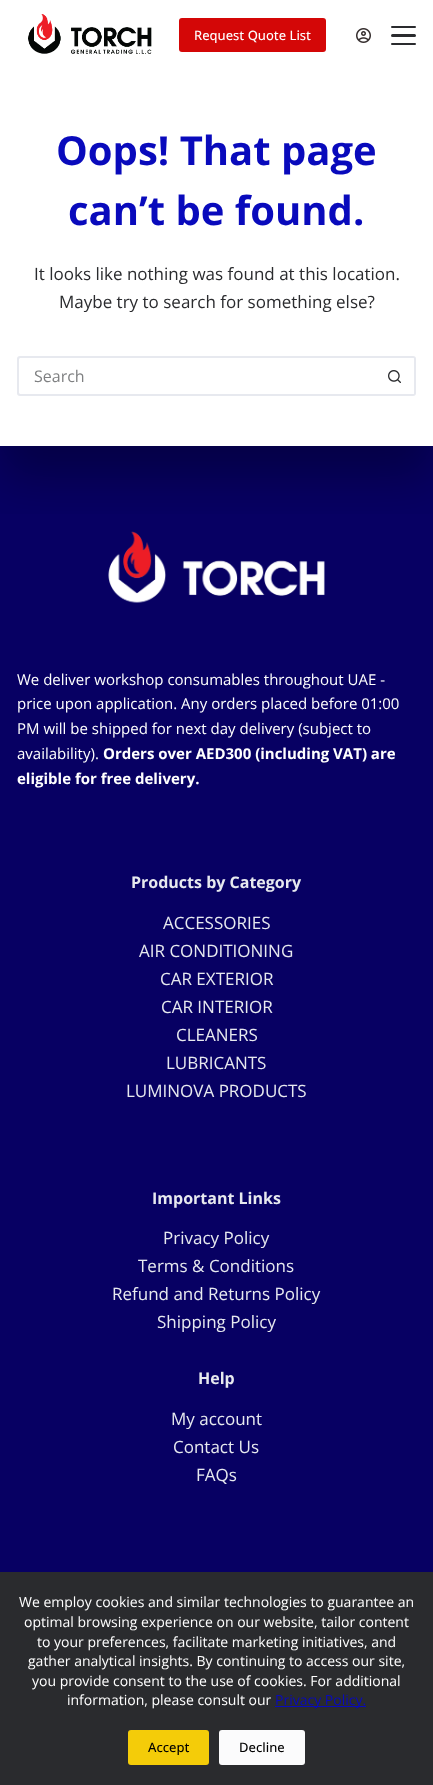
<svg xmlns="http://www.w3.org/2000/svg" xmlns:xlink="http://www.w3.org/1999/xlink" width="433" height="1785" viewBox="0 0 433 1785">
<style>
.cls-1{font:500 13px Open Sans;fill:#ffffff}
.cls-2{font:bold 40px Open Sans;fill:#090abc}
.cls-3{font:17px Open Sans;fill:#2a2b2e}
.cls-4{font:16px Open Sans;fill:#7f8082}
.cls-5{font:15px Open Sans;fill:#ffffff}
.cls-6{font:bold 15px Open Sans;fill:#ffffff}
.cls-7{font:bold 16px Open Sans;fill:#e7e9ef}
.cls-8{font:17px Open Sans;fill:#e7e9ef}
.cls-9{font:14px Open Sans;fill:#ffffff}
.cls-10{font:14px Open Sans;fill:#090abc}
.cls-11{font:500 13px Open Sans;fill:#000000}
</style>
<defs>
<clipPath id="clip1"><rect x="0" y="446" width="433" height="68"/></clipPath>
</defs>
<rect width="100%" height="100%" fill="#ffffff"/>
<rect fill="#070063" x="0" y="446" width="433" height="1126"/>
<image xlink:href="image3.png" x="108" y="531" width="217" height="72"/>
<g clip-path="url(#clip1)">
<rect fill="#000000" fill-opacity="0.3" filter="blur(25px)" x="0" y="100" width="433" height="376"/>
</g>
<rect fill="#ffffff" x="0" y="54" width="433" height="16"/>
<image xlink:href="image0.png" x="28" y="14" width="124" height="40"/>
<rect fill="#d40707" x="179" y="18" width="147" height="34" rx="3"/>
<image xlink:href="image1.png" x="356" y="28" width="15" height="15"/>
<rect fill="#2a2b2e" x="391" y="26" width="25" height="2" rx="1"/>
<rect fill="#2a2b2e" x="391" y="34" width="25" height="3" rx="1.5"/>
<rect fill="#2a2b2e" x="391" y="43" width="25" height="2" rx="1"/>
<path fill="#e7e9ef" fill-rule="evenodd" d="M20 356H376V396H20C18 396 17 395 17 393V359C17 357 18 356 20 356ZM20 358H376V394H20L19 393V359Z"/>
<path fill="#e7e9ef" fill-rule="evenodd" d="M376 356H413C415 356 416 357 416 359V393C416 395 415 396 413 396H376ZM376 358H413C414 358 414 358 414 359V393C414 394 414 394 413 394H376Z"/>
<image xlink:href="image2.png" x="388" y="370" width="13" height="13"/>
<rect fill="#2a2b2e" x="0" y="1572" width="433" height="213"/>
<rect fill="#090abc" x="275" y="1706" width="91" height="1"/>
<rect fill="#f4cc09" x="128" y="1730" width="81" height="35" rx="3"/>
<rect fill="#fbfbfc" x="219" y="1730" width="86" height="35" rx="3"/>
<text class="cls-1" x="194" y="40">Request Quote List</text>
<text class="cls-2" x="56" y="165">Oops! That page</text>
<text class="cls-2" x="68" y="225">can’t be found.</text>
<text class="cls-3" x="34" y="280">It looks like nothing was found at this location.</text>
<text class="cls-3" x="59" y="308">Maybe try to search for something else?</text>
<text class="cls-4" x="34" y="382">Search</text>
<text class="cls-5"><tspan x="17" y="685">We deliver workshop consumables throughout UAE -</tspan><tspan x="17" y="709">price upon application. Any orders placed before 01:00</tspan><tspan x="17" y="734">PM will be shipped for next day delivery (subject to</tspan><tspan x="17" y="759">availability).</tspan></text>
<text class="cls-6" x="103" y="759">Orders over AED300 (including VAT) are</text>
<text class="cls-6" x="17" y="784">eligible for free delivery.</text>
<text class="cls-7" x="131" y="888">Products by Category</text>
<text class="cls-8" x="163" y="929">ACCESSORIES</text>
<text class="cls-8" x="139" y="957">AIR CONDITIONING</text>
<text class="cls-8" x="160" y="985">CAR EXTERIOR</text>
<text class="cls-8" x="161" y="1013">CAR INTERIOR</text>
<text class="cls-8" x="176" y="1041">CLEANERS</text>
<text class="cls-8" x="166" y="1069">LUBRICANTS</text>
<text class="cls-8" x="126" y="1097">LUMINOVA PRODUCTS</text>
<text class="cls-7" x="152" y="1204">Important Links</text>
<text class="cls-8" x="163" y="1244">Privacy Policy</text>
<text class="cls-8" x="138" y="1272">Terms &amp; Conditions</text>
<text class="cls-8" x="112" y="1300">Refund and Returns Policy</text>
<text class="cls-8" x="157" y="1328">Shipping Policy</text>
<text class="cls-7" x="198" y="1384">Help</text>
<text class="cls-8" x="171" y="1425">My account</text>
<text class="cls-8" x="173" y="1453">Contact Us</text>
<text class="cls-8" x="196" y="1481">FAQs</text>
<text class="cls-9" x="19" y="1607">We employ cookies and similar technologies to guarantee an</text>
<text class="cls-9" x="24" y="1627">optimal browsing experience on our website, tailor content</text>
<text class="cls-9" x="37" y="1647">to your preferences, facilitate marketing initiatives, and</text>
<text class="cls-9" x="28" y="1666">gather analytical insights. By continuing to access our site,</text>
<text class="cls-9" x="32" y="1686">you provide consent to the use of cookies. For additional</text>
<text class="cls-9" x="67" y="1705">information, please consult our</text>
<text class="cls-10" x="275" y="1705">Privacy Policy.</text>
<text class="cls-11" x="148" y="1752">Accept</text>
<text class="cls-11" x="239" y="1752">Decline</text>
</svg>
